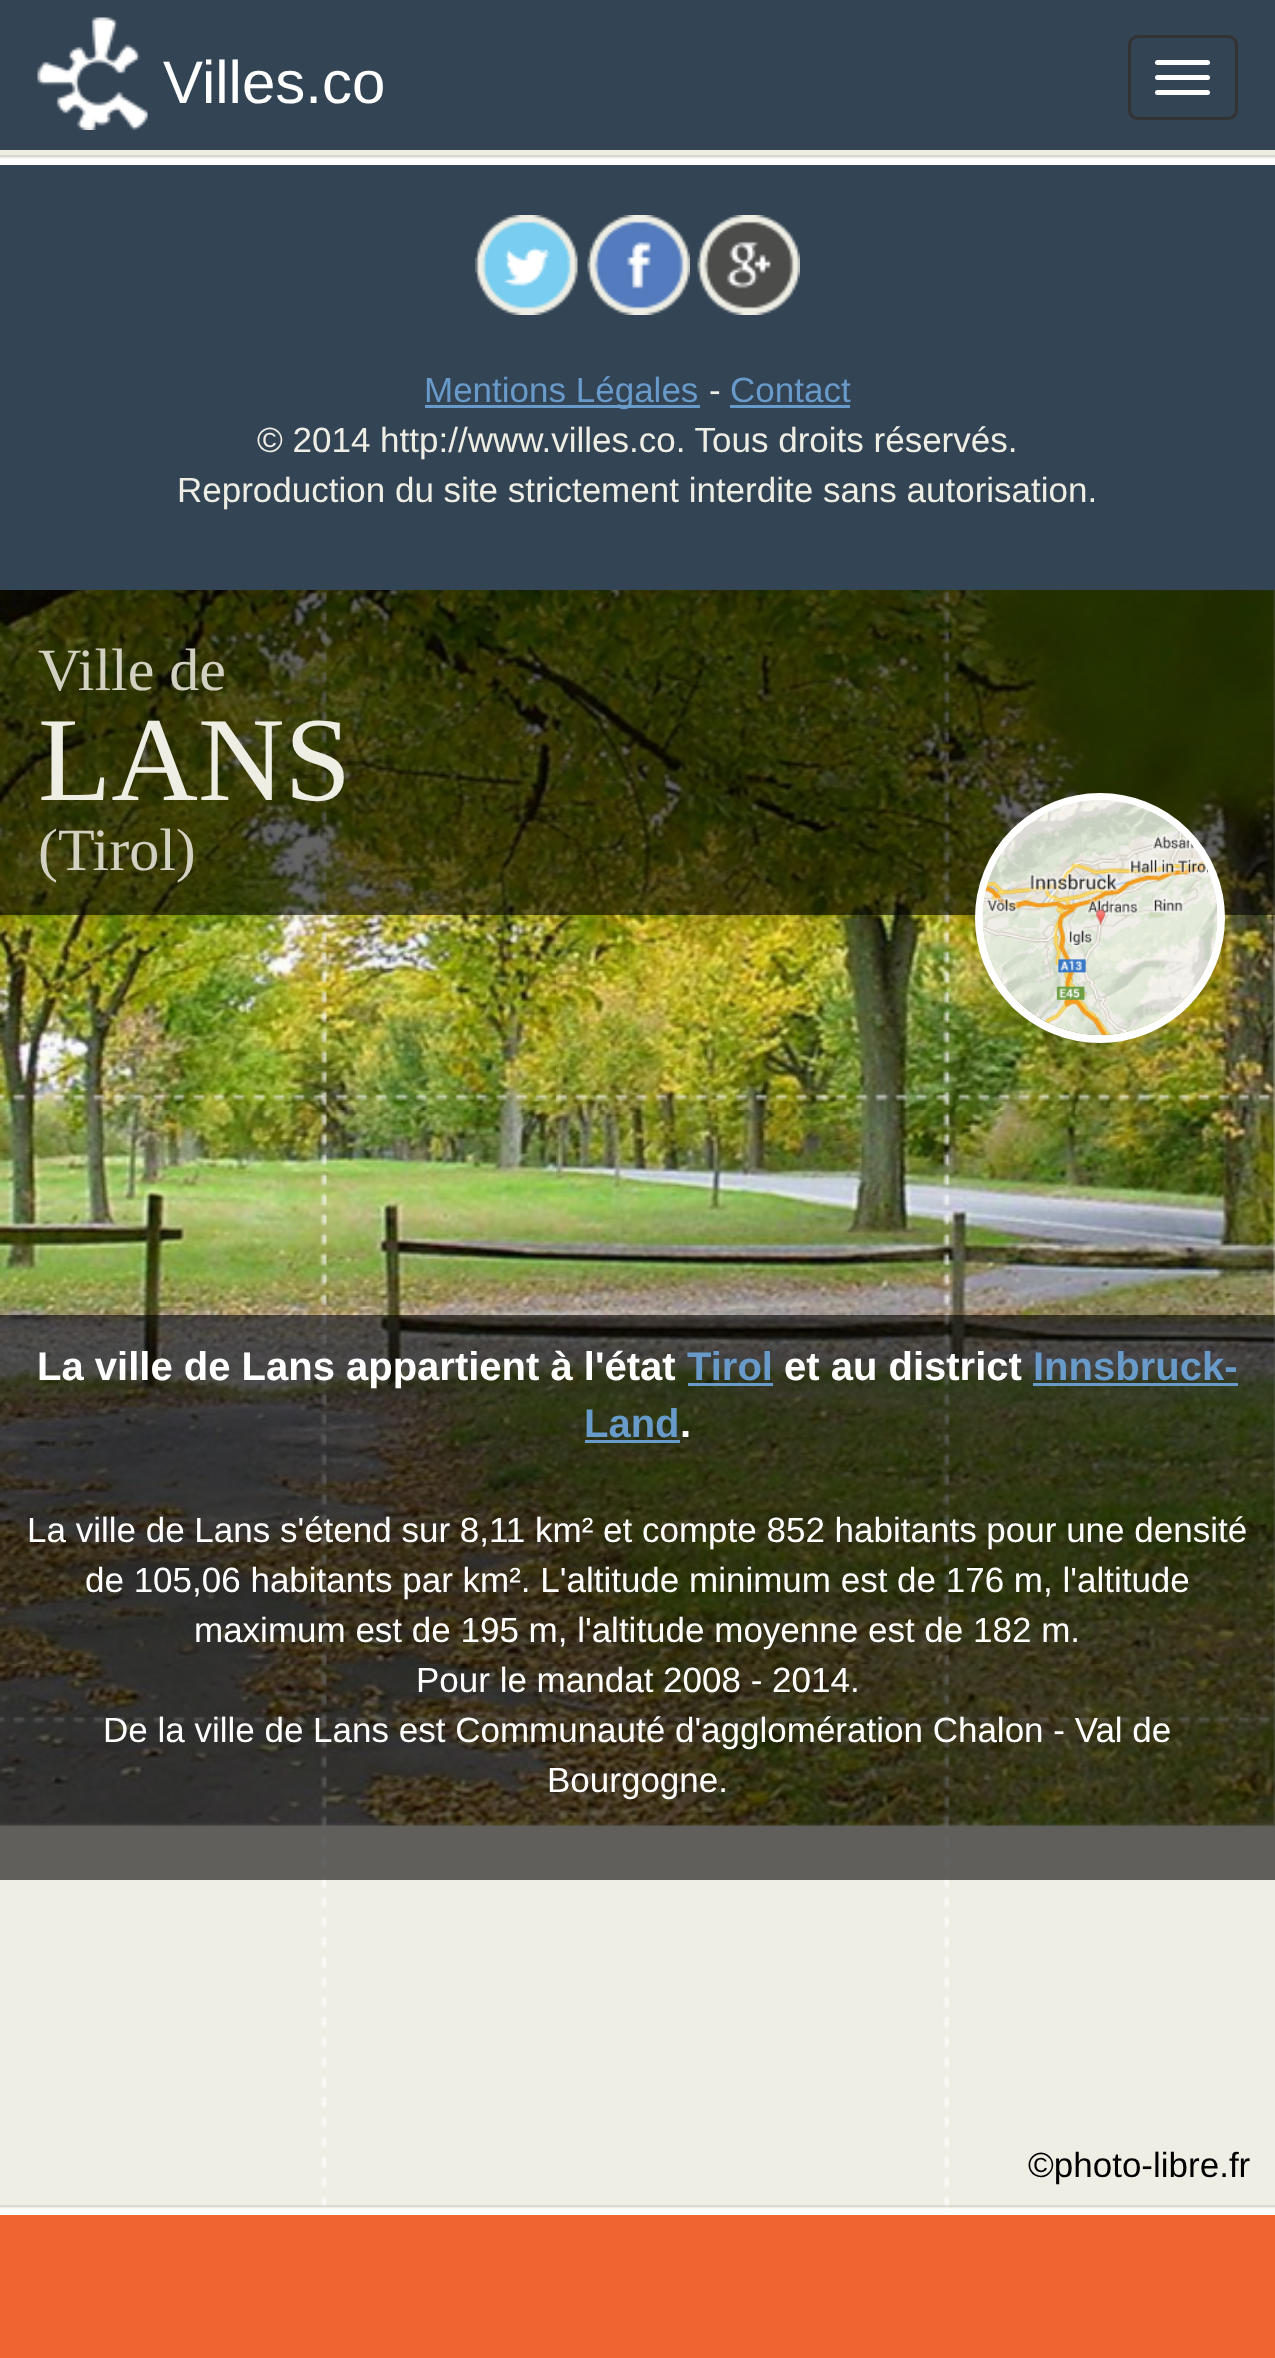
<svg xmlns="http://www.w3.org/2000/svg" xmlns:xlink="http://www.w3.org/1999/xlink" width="1275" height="2358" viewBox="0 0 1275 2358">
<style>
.cls-1{font:60px Liberation Sans;fill:#ffffff}
.cls-2{font:35px Liberation Sans;fill:#689aca}
.cls-3{font:35px Liberation Sans;fill:#efeee4}
.cls-4{font:60px Liberation Serif;fill:#d1d0c1}
.cls-5{font:120px Liberation Serif;fill:#efeee4}
.cls-6{font:bold 40px Liberation Sans;fill:#ffffff}
.cls-7{font:bold 40px Liberation Sans;fill:#689aca}
.cls-8{font:35px Liberation Sans;fill:#ffffff}
.cls-9{font:35px Liberation Sans;fill:#000000}
</style>
<rect width="100%" height="100%" fill="#efeee4"/>
<rect fill="#334455" x="0" y="0" width="1275" height="150"/>
<image xlink:href="image0.png" x="37" y="17" width="111" height="113"/>
<rect fill="none" stroke="#333333" stroke-width="3" x="1129.5" y="36.5" width="107" height="82" rx="8.5"/>
<rect fill="#ffffff" x="1155" y="60" width="55" height="5" rx="2.5"/>
<rect fill="#ffffff" x="1155" y="75" width="55" height="5" rx="2.5"/>
<rect fill="#ffffff" x="1155" y="90" width="55" height="5" rx="2.5"/>
<image xlink:href="image1.png" x="0" y="155" width="1275" height="10"/>
<rect fill="#334455" x="0" y="165" width="1275" height="425"/>
<image xlink:href="image2.png" x="475" y="215" width="103" height="100"/>
<image xlink:href="image3.png" x="587" y="215" width="103" height="100"/>
<image xlink:href="image4.png" x="697" y="215" width="103" height="100"/>
<rect fill="#689aca" x="425" y="405" width="275" height="3"/>
<rect fill="#689aca" x="730" y="405" width="120" height="3"/>
<image xlink:href="image5.png" x="0" y="590" width="1275" height="1237"/>
<image xlink:href="image6.png" x="0" y="590" width="1272" height="1619"/>
<rect fill="#000000" fill-opacity="0.6" x="0" y="590" width="1275" height="325"/>
<circle fill="none" stroke="#ffffff" stroke-width="8" cx="1100" cy="918" r="121"/>
<image xlink:href="image7.png" x="982" y="800" width="236" height="235"/>
<image xlink:href="image8.png" x="0" y="2205" width="1275" height="10"/>
<rect fill="#000000" fill-opacity="0.6" x="0" y="1315" width="1275" height="565"/>
<rect fill="#689aca" x="688" y="1383" width="85" height="3"/>
<rect fill="#689aca" x="1033" y="1383" width="205" height="3"/>
<rect fill="#689aca" x="585" y="1440" width="95" height="3"/>
<rect fill="#f0652f" x="0" y="2215" width="1275" height="143"/>
<text class="cls-1" x="163" y="103">Villes.co</text>
<text class="cls-2" x="424" y="402">Mentions Légales</text>
<text class="cls-3" x="709" y="402">-</text>
<text class="cls-2" x="730" y="402">Contact</text>
<text class="cls-3" x="257" y="452">© 2014 http://www.villes.co. Tous droits réservés.</text>
<text class="cls-3" x="177" y="502">Reproduction du site strictement interdite sans autorisation.</text>
<text class="cls-4" x="38" y="690">Ville de</text>
<text class="cls-5" x="38" y="800">LANS</text>
<text class="cls-4" x="38" y="870">(Tirol)</text>
<text class="cls-6" x="37" y="1380">La ville de Lans appartient à l'état</text>
<text class="cls-7" x="687" y="1380">Tirol</text>
<text class="cls-6" x="784" y="1380">et au district</text>
<text class="cls-7" x="1033" y="1380">Innsbruck-</text>
<text class="cls-7" x="584" y="1437">Land</text>
<text class="cls-6" x="680" y="1437">.</text>
<text class="cls-8" x="27" y="1542">La ville de Lans s'étend sur 8,11 km² et compte 852 habitants pour une densité</text>
<text class="cls-8" x="85" y="1592">de 105,06 habitants par km². L'altitude minimum est de 176 m, l'altitude</text>
<text class="cls-8" x="194" y="1642">maximum est de 195 m, l'altitude moyenne est de 182 m.</text>
<text class="cls-8" x="416" y="1692">Pour le mandat 2008 - 2014.</text>
<text class="cls-8" x="103" y="1742">De la ville de Lans est Communauté d'agglomération Chalon - Val de</text>
<text class="cls-8" x="547" y="1792">Bourgogne.</text>
<text class="cls-9" x="1028" y="2177">©photo-libre.fr</text>
</svg>
